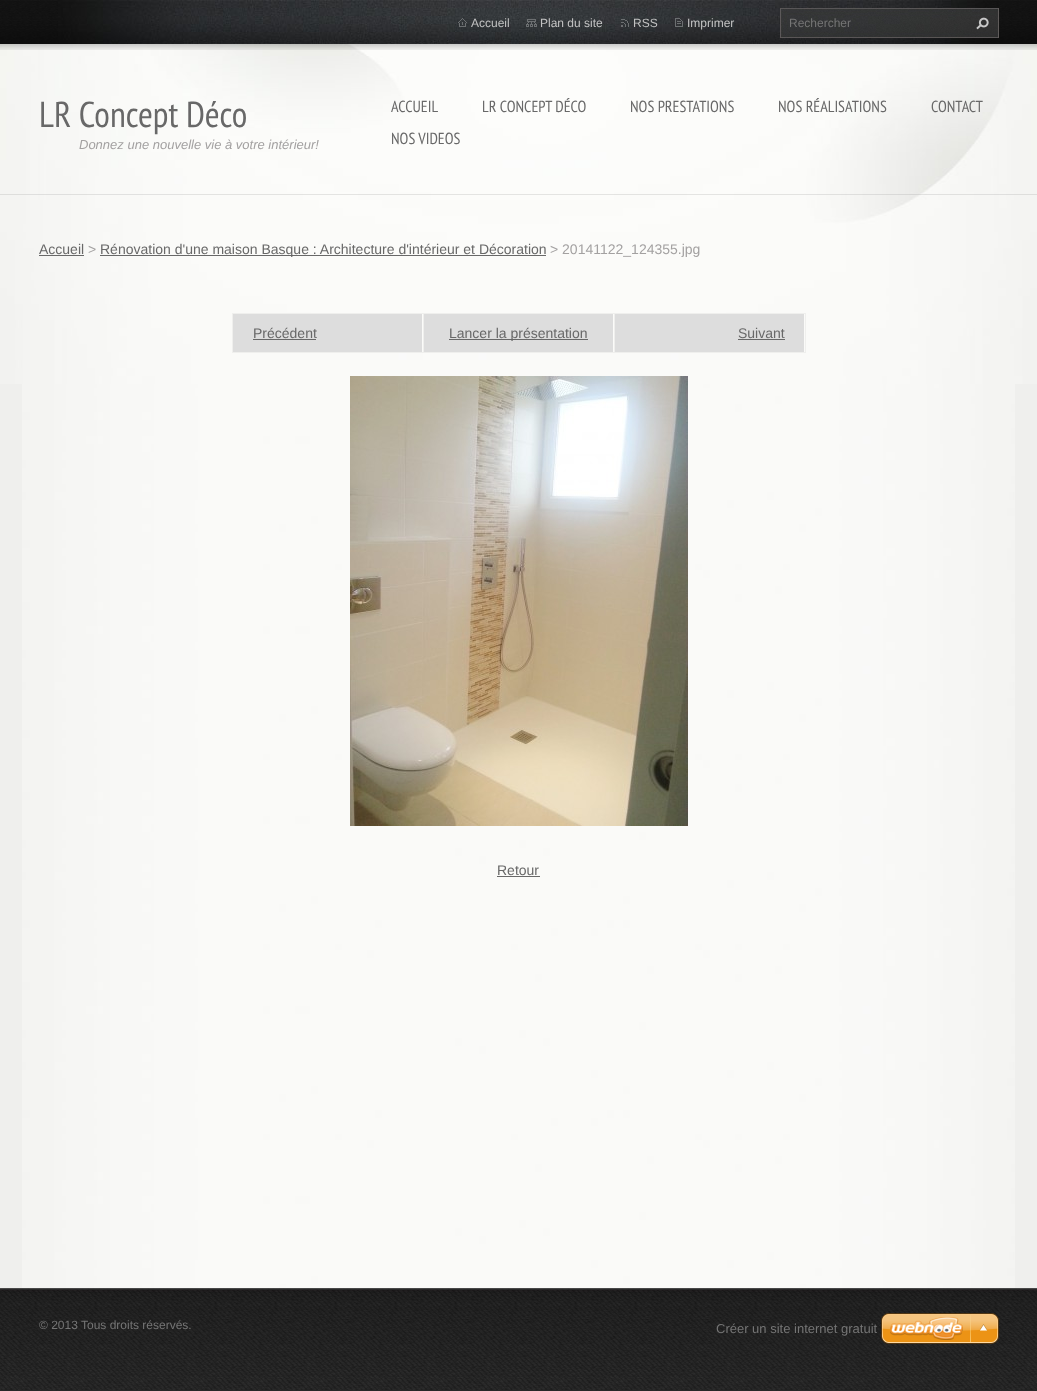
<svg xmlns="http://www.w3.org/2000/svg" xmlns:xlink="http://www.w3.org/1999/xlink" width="1037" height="1391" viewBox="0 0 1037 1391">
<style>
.cls-1{font:12px Liberation Sans;fill:#c3c3c3}
.cls-2{font:12px Liberation Sans;fill:#757575}
.cls-3{font:36px PT Sans Narrow;fill:#686868}
.cls-4{font:italic 13px Liberation Sans;fill:#a3a1a1}
.cls-5{font:16px PT Sans Narrow;fill:#686868}
.cls-6{font:14px Liberation Sans;fill:#686868}
.cls-7{font:14px Liberation Sans;fill:#a3a1a1}
.cls-8{font:13px Liberation Sans;fill:#757575}
</style>
<defs>
<clipPath id="clip1"><rect x="39" y="1288" width="480" height="103"/></clipPath>
</defs>
<rect width="100%" height="100%" fill="#efefed"/>
<image xlink:href="image0.png" x="22" y="384" width="993" height="904"/>
<image xlink:href="image1.png" x="0" y="44" width="1037" height="340"/>
<rect fill="#9e9e9e" fill-opacity="0.26" x="0" y="194" width="1037" height="1"/>
<image xlink:href="image2.png" x="0" y="0" width="1037" height="50"/>
<image xlink:href="image3.png" x="58" y="0" width="925" height="44"/>
<image xlink:href="image4.png" x="458" y="18" width="9" height="9"/>
<image xlink:href="image5.png" x="526" y="19" width="11" height="8"/>
<image xlink:href="image6.png" x="621" y="19" width="8" height="8"/>
<image xlink:href="image7.png" x="675" y="18" width="8" height="9"/>
<image xlink:href="image8.png" x="780" y="8" width="219" height="30"/>
<image xlink:href="image9.png" x="976" y="17" width="13" height="13"/>
<rect fill="#686868" x="39" y="255" width="45" height="1"/>
<rect fill="#686868" x="100" y="255" width="446" height="1"/>
<rect fill="#efefed" x="232" y="313" width="574" height="1"/>
<rect fill="#efefed" x="232" y="313" width="1" height="40"/>
<rect fill="#dddddd" x="233" y="314" width="189" height="38"/>
<rect fill="#efefed" x="805" y="313" width="1" height="40"/>
<rect fill="#efefed" x="614" y="352" width="192" height="1"/>
<rect fill="#efefed" x="614" y="313" width="1" height="40"/>
<rect fill="#efefed" x="423" y="352" width="192" height="1"/>
<rect fill="#efefed" x="423" y="313" width="1" height="40"/>
<rect fill="#efefed" x="232" y="352" width="192" height="1"/>
<rect fill="#686868" x="253" y="339" width="63" height="1"/>
<rect fill="#dddddd" x="424" y="314" width="189" height="38"/>
<rect fill="#686868" x="449" y="339" width="139" height="1"/>
<rect fill="#dddddd" x="615" y="314" width="189" height="38"/>
<rect fill="#686868" x="738" y="339" width="47" height="1"/>
<image xlink:href="image10.png" x="350" y="376" width="338" height="450"/>
<rect fill="#686868" x="497" y="876" width="43" height="1"/>
<image xlink:href="image11.png" x="0" y="1288" width="1037" height="103"/>
<image xlink:href="image12.png" x="881" y="1313" width="118" height="31"/>
<text class="cls-1" x="471" y="27">Accueil</text>
<text class="cls-1" x="540" y="27">Plan du site</text>
<text class="cls-1" x="633" y="27">RSS</text>
<text class="cls-1" x="687" y="27">Imprimer</text>
<text class="cls-2" x="789" y="27">Rechercher</text>
<text class="cls-3" x="39" y="127">LR Concept Déco</text>
<text class="cls-4" x="79" y="149">Donnez une nouvelle vie à votre intérieur!</text>
<text class="cls-5" x="391" y="112">ACCUEIL</text>
<text class="cls-5" x="482" y="112">LR CONCEPT DÉCO</text>
<text class="cls-5" x="630" y="112">NOS PRESTATIONS</text>
<text class="cls-5" x="778" y="112">NOS RÉALISATIONS</text>
<text class="cls-5" x="931" y="112">CONTACT</text>
<text class="cls-5" x="391" y="144">NOS VIDEOS</text>
<text class="cls-6" x="39" y="254">Accueil</text>
<text class="cls-7" x="88" y="254">&gt;</text>
<text class="cls-6" x="100" y="254">Rénovation d'une maison Basque : Architecture d'intérieur et Décoration</text>
<text class="cls-7" x="550" y="254">&gt; 20141122_124355.jpg</text>
<text class="cls-6" x="253" y="338">Précédent</text>
<text class="cls-6" x="449" y="338">Lancer la présentation</text>
<text class="cls-6" x="738" y="338">Suivant</text>
<text class="cls-6" x="497" y="875">Retour</text>
<g clip-path="url(#clip1)">
<text class="cls-2" x="39" y="1329">© 2013 Tous droits réservés.</text>
</g>
<text class="cls-8" x="716" y="1333">Créer un site internet gratuit</text>
</svg>
